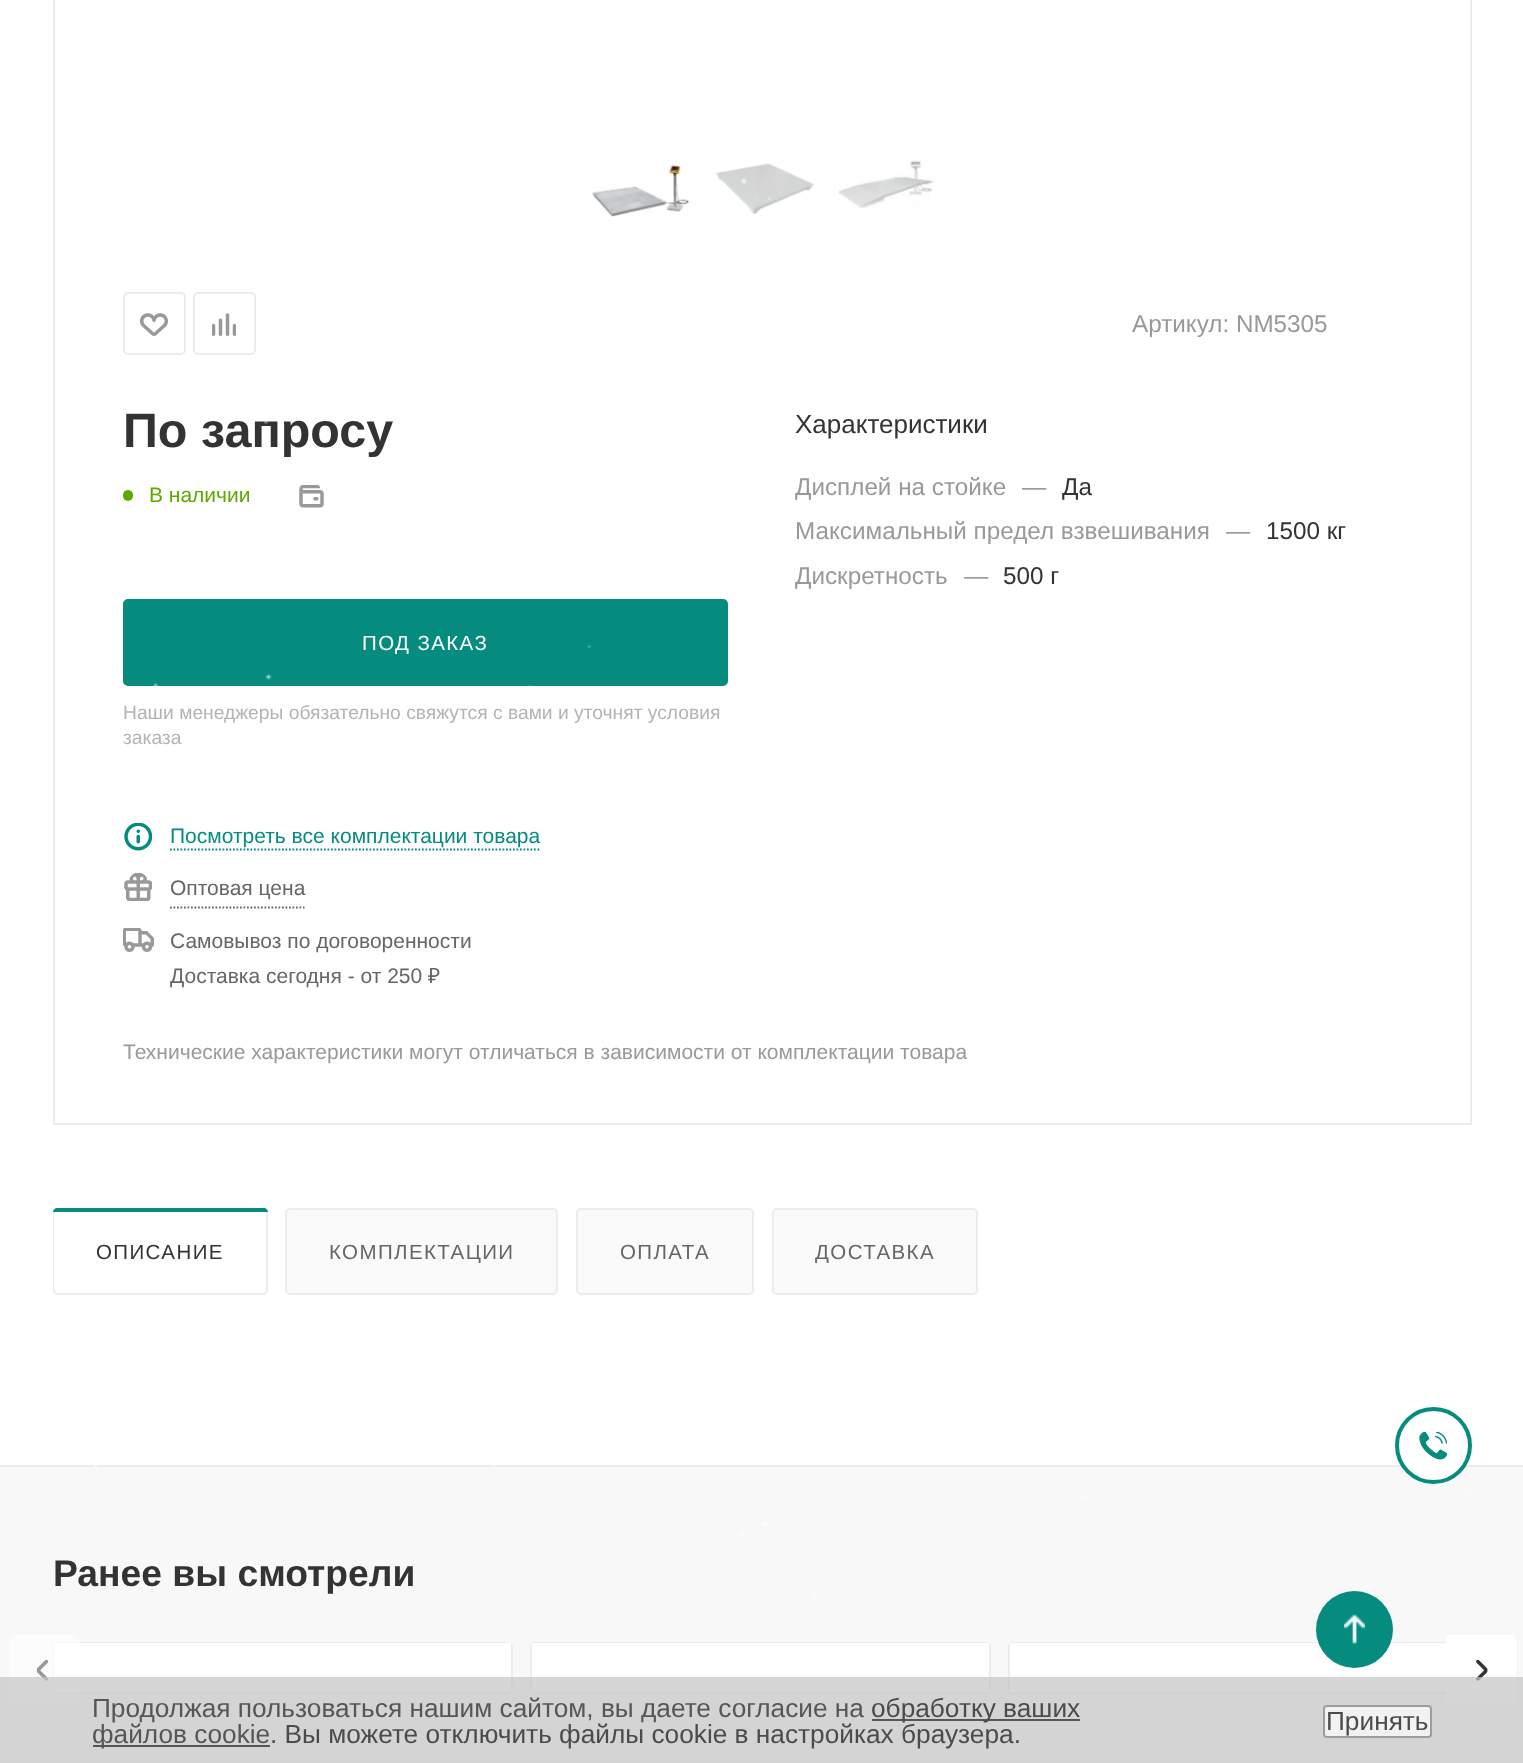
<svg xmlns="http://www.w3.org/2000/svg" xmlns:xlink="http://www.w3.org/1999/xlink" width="1523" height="1763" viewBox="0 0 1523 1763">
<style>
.cls-1{font:24.25px Liberation Sans;fill:#999999}
.cls-2{font:bold 48.5px Liberation Sans;fill:#333333}
.cls-3{font:21px Liberation Sans;fill:#5fa800}
.cls-4{font:20.5px Liberation Sans;letter-spacing:1.4px;fill:#ffffff}
.cls-5{font:19.25px Liberation Sans;fill:#b3b3b3}
.cls-6{font:21px Liberation Sans;fill:#068c7f}
.cls-7{font:21px Liberation Sans;fill:#666666}
.cls-8{font:21px Noto Sans;fill:#666666}
.cls-9{font:26px Liberation Sans;fill:#333333}
.cls-10{font:24.25px Liberation Sans;fill:#333333}
.cls-11{font:21px Liberation Sans;fill:#999999}
.cls-12{font:20.5px Liberation Sans;letter-spacing:1.4px;fill:#333333}
.cls-13{font:20.5px Liberation Sans;letter-spacing:1.4px;fill:#666666}
.cls-14{font:bold 37.25px Liberation Sans;fill:#333333}
.cls-15{font:26.25px Liberation Sans;fill:#565656}
.cls-16{font:26.25px Liberation Sans;fill:#4b4b4b}
</style>
<rect width="100%" height="100%" fill="#ffffff"/>
<rect fill="none" stroke="#ececec" stroke-width="2" x="54" y="-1" width="1417" height="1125"/>
<image xlink:href="image1.png" x="592" y="164" width="97" height="53"/>
<image xlink:href="image2.png" x="716" y="163" width="99" height="51"/>
<image xlink:href="image3.png" x="838" y="160" width="96" height="49"/>
<rect fill="none" stroke="#ececec" stroke-width="2" x="124" y="293" width="61" height="61" rx="4"/>
<image xlink:href="image4.png" x="140" y="313" width="28" height="23"/>
<rect fill="none" stroke="#ececec" stroke-width="2" x="194" y="293" width="61" height="61" rx="4"/>
<image xlink:href="image5.png" x="212" y="313" width="24" height="23"/>
<rect fill="#5fa800" x="123" y="490" width="10" height="11" rx="5"/>
<image xlink:href="image6.png" x="299" y="485" width="25" height="23"/>
<rect fill="#068c7f" stroke="#068c7f" stroke-width="2" x="124" y="600" width="603" height="85" rx="4"/>
<image xlink:href="image7.png" x="124" y="823" width="28" height="28"/>
<path fill="none" stroke="#068c7f" stroke-width="1.8" stroke-dasharray="1.75 1.75" d="M170 849.5H541"/>
<image xlink:href="image8.png" x="124" y="873" width="28" height="28"/>
<path fill="none" stroke="#666666" stroke-width="1.8" stroke-dasharray="1.75 1.75" d="M170 907.5H304.5"/>
<image xlink:href="image9.png" x="123" y="928" width="31" height="24"/>
<rect fill="#fafafa" stroke="#ececec" stroke-width="2" x="54" y="1209" width="213" height="85" rx="4"/>
<rect fill="#ffffff" x="54" y="1209" width="212" height="84" rx="5"/>
<path fill="#068c7f" d="M57 1208H264C266 1208 268 1210 268 1212H53C53 1210 55 1208 57 1208Z"/>
<rect fill="#fafafa" stroke="#ececec" stroke-width="2" x="286" y="1209" width="271" height="85" rx="4"/>
<rect fill="#fafafa" stroke="#ececec" stroke-width="2" x="577" y="1209" width="176" height="85" rx="4"/>
<rect fill="#fafafa" stroke="#ececec" stroke-width="2" x="773" y="1209" width="204" height="85" rx="4"/>
<rect fill="#f8f8f8" x="0" y="1467" width="1523" height="296"/>
<rect fill="#ececec" x="0" y="1465" width="1523" height="2"/>
<circle fill="#ffffff" stroke="#068c7f" stroke-width="4" cx="1433.5" cy="1445.5" r="36.5"/>
<image xlink:href="image10.png" x="1419" y="1432" width="28" height="28"/>
<rect fill="none" stroke="#ececec" stroke-width="2" x="54" y="1643" width="458" height="50" rx="4"/>
<rect fill="#ffffff" x="54" y="1643" width="457" height="49"/>
<rect fill="#ffffff" fill-opacity="0.5" x="9" y="1635" width="70" height="70" rx="5"/>
<image xlink:href="image11.png" x="36" y="1660" width="13" height="21"/>
<rect fill="none" stroke="#ececec" stroke-width="2" x="1009" y="1643" width="458" height="50" rx="4"/>
<rect fill="#ffffff" x="1446" y="1635" width="70" height="70" rx="5"/>
<image xlink:href="image12.png" x="1476" y="1659" width="12" height="22"/>
<rect fill="none" stroke="#ececec" stroke-width="2" x="531" y="1643" width="459" height="50" rx="4"/>
<rect fill="#ffffff" x="532" y="1643" width="457" height="49"/>
<rect fill="#ffffff" x="1010" y="1643" width="436" height="49"/>
<circle fill="#068c7f" cx="1354.5" cy="1629.5" r="38.5"/>
<image xlink:href="image13.png" x="1344" y="1614" width="21" height="30"/>
<text class="cls-1" x="1132" y="332">Артикул: NM5305</text>
<text class="cls-2" x="123" y="447">По запросу</text>
<text class="cls-3" x="149" y="502">В наличии</text>
<text class="cls-4" x="362" y="650">ПОД ЗАКАЗ</text>
<text class="cls-5"><tspan x="123" y="719">Наши менеджеры обязательно свяжутся с вами и уточнят условия</tspan><tspan x="123" y="744">заказа</tspan></text>
<text class="cls-6" x="170" y="843">Посмотреть все комплектации товара</text>
<text class="cls-7" x="170" y="895">Оптовая цена</text>
<text class="cls-7"><tspan x="170" y="948">Самовывоз по договоренности</tspan><tspan x="170" y="983">Доставка сегодня - от 250</tspan></text>
<text class="cls-8" x="428" y="983">₽</text>
<text class="cls-9" x="795" y="433">Характеристики</text>
<text class="cls-1" x="795" y="495">Дисплей на стойке</text>
<text class="cls-1" x="1022" y="495">—</text>
<text class="cls-10" x="1062" y="495">Да</text>
<text class="cls-1" x="795" y="539">Максимальный предел взвешивания</text>
<text class="cls-1" x="1226" y="539">—</text>
<text class="cls-10" x="1266" y="539">1500 кг</text>
<text class="cls-1" x="795" y="584">Дискретность</text>
<text class="cls-1" x="964" y="584">—</text>
<text class="cls-10" x="1003" y="584">500 г</text>
<text class="cls-11" x="123" y="1059">Технические характеристики могут отличаться в зависимости от комплектации товара</text>
<text class="cls-12" x="96" y="1259">ОПИСАНИЕ</text>
<text class="cls-13" x="329" y="1259">КОМПЛЕКТАЦИИ</text>
<text class="cls-13" x="620" y="1259">ОПЛАТА</text>
<text class="cls-13" x="815" y="1259">ДОСТАВКА</text>
<text class="cls-14" x="53" y="1586">Ранее вы смотрели</text>
<image xlink:href="image0.png" x="94" y="178" width="1376" height="1584"/>
<rect fill="#c5c5c5" fill-opacity="0.7" x="0" y="1677" width="1523" height="86"/>
<text class="cls-15" x="92" y="1717">Продолжая пользоваться нашим сайтом, вы даете согласие на</text>
<rect fill="#565656" x="872" y="1719" width="208" height="2"/>
<text class="cls-16" x="871" y="1717">обработку ваших</text>
<rect fill="#565656" x="93" y="1745" width="177" height="2"/>
<text class="cls-15" x="92" y="1743">файлов cookie</text>
<text class="cls-16" x="270" y="1743">. Вы можете отключить файлы cookie в настройках браузера.</text>
<rect fill="#f2f2f2" stroke="#9d9d9d" stroke-width="2" x="1324" y="1706" width="107" height="31" rx="3"/>
<text class="cls-16" x="1326" y="1730">Принять</text>
</svg>
